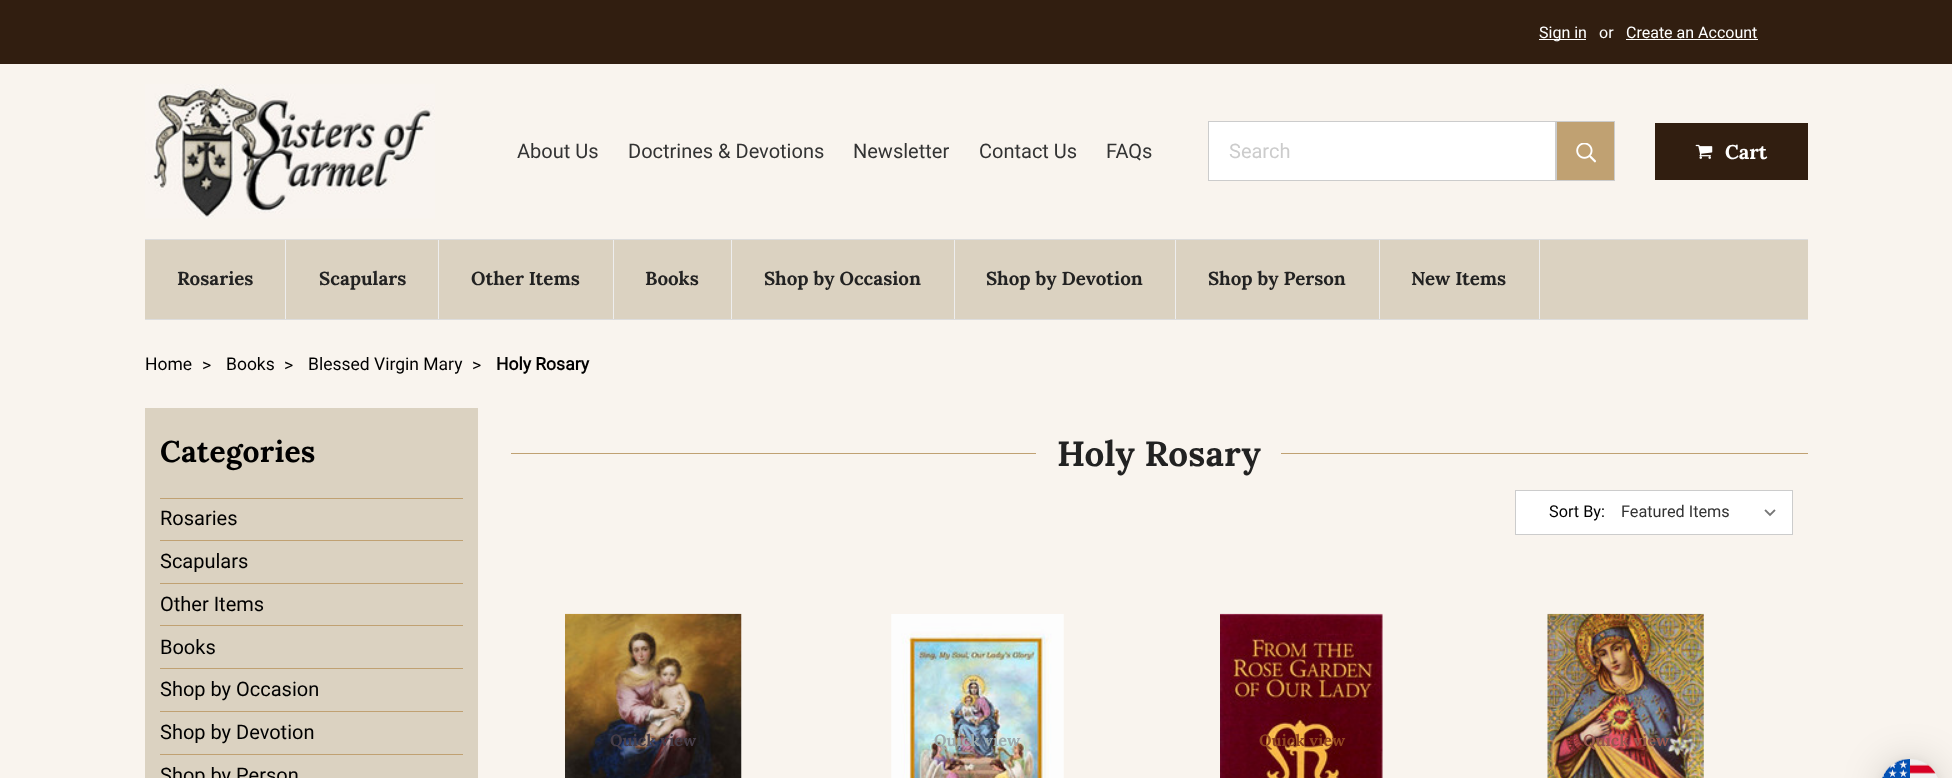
<svg xmlns="http://www.w3.org/2000/svg" xmlns:xlink="http://www.w3.org/1999/xlink" width="1952" height="778" viewBox="0 0 1952 778">
<style>
.cls-1{font:16px Roboto;fill:#ffffff}
.cls-2{font:20px Roboto;fill:#333333}
.cls-3{font:20px Roboto;fill:#cccccc}
.cls-4{font:bold 20px Lora;fill:#ffffff}
.cls-5{font:bold 18.75px Lora;fill:#222222}
.cls-6{font:17.5px Roboto;fill:#000000}
.cls-7{font:bold 17.5px Roboto;fill:#000000}
.cls-8{font:bold 30px Lora;letter-spacing:0.25px;fill:#000000}
.cls-9{font:20px Roboto;fill:#000000}
.cls-10{font:bold 35px Lora;letter-spacing:0.25px;fill:#222222}
.cls-11{font:16.25px Roboto;fill:#000000}
.cls-12{font:16.25px Roboto;fill:#333333}
.cls-13{font:bold 16.25px Lora;fill:#473e49}
.cls-14{font:bold 16.25px Lora;fill:#9eacaf}
.cls-15{font:bold 16.25px Lora;fill:#914522}
.cls-16{font:bold 16.25px Lora;fill:#995850}
</style>
<rect width="100%" height="100%" fill="#f9f4ee"/>
<rect fill="#311e10" x="0" y="0" width="1952" height="64"/>
<rect fill="#ffffff" x="1539" y="39" width="47" height="1"/>
<rect fill="#ffffff" x="1626" y="39" width="132" height="1"/>
<image xlink:href="image0.png" x="145" y="84" width="290" height="135"/>
<rect fill="#ffffff" stroke="#cccccc" x="1208.5" y="121.5" width="347" height="59"/>
<rect fill="#c0a172" stroke="#cccccc" x="1556.5" y="121.5" width="58" height="59"/>
<image xlink:href="image1.png" x="1576" y="143" width="20" height="20"/>
<rect fill="#311e10" x="1655" y="123" width="153" height="57"/>
<image xlink:href="image2.png" x="1695" y="144" width="18" height="15"/>
<rect fill="#dbd2c1" x="145" y="240" width="1663" height="79"/>
<rect fill="#dddddd" x="145" y="239" width="1663" height="1"/>
<rect fill="#dddddd" x="145" y="319" width="1663" height="1"/>
<rect fill="#eeeeee" x="285" y="240" width="1" height="79"/>
<rect fill="#eeeeee" x="438" y="240" width="1" height="79"/>
<rect fill="#eeeeee" x="613" y="240" width="1" height="79"/>
<rect fill="#eeeeee" x="731" y="240" width="1" height="79"/>
<rect fill="#eeeeee" x="954" y="240" width="1" height="79"/>
<rect fill="#eeeeee" x="1175" y="240" width="1" height="79"/>
<rect fill="#eeeeee" x="1379" y="240" width="1" height="79"/>
<rect fill="#eeeeee" x="1539" y="240" width="1" height="79"/>
<rect fill="#dbd2c1" x="145" y="408" width="333" height="370"/>
<rect fill="#c0a172" x="160" y="498" width="303" height="1"/>
<rect fill="#c0a172" x="160" y="540" width="303" height="1"/>
<rect fill="#c0a172" x="160" y="583" width="303" height="1"/>
<rect fill="#c0a172" x="160" y="625" width="303" height="1"/>
<rect fill="#c0a172" x="160" y="668" width="303" height="1"/>
<rect fill="#c0a172" x="160" y="711" width="303" height="1"/>
<rect fill="#c0a172" x="160" y="754" width="303" height="1"/>
<rect fill="#c0a172" x="511" y="453" width="1297" height="1"/>
<rect fill="#f9f4ee" x="1036" y="453" width="245" height="1"/>
<rect fill="#ffffff" stroke="#cccccc" x="1515.5" y="490.5" width="277" height="44"/>
<image xlink:href="image3.png" x="1764" y="509" width="12" height="8"/>
<image xlink:href="image4.png" x="565" y="613" width="177" height="165"/>
<image xlink:href="image5.png" x="891" y="614" width="173" height="164"/>
<image xlink:href="image6.png" x="1220" y="613" width="163" height="165"/>
<image xlink:href="image7.png" x="1547" y="613" width="157" height="165"/>
<rect fill="#000000" fill-opacity="0.16" filter="blur(20px)" x="1880" y="761" width="60" height="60" rx="30"/>
<rect fill="#000000" fill-opacity="0.06" filter="blur(4px)" x="1880" y="760" width="60" height="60" rx="30"/>
<image xlink:href="image8.png" x="1882" y="759" width="56" height="19"/>
<text class="cls-1" x="1539" y="38">Sign in</text>
<text class="cls-1" x="1599" y="38">or</text>
<text class="cls-1" x="1626" y="38">Create an Account</text>
<text class="cls-2" x="517" y="158">About Us</text>
<text class="cls-2" x="628" y="158">Doctrines &amp; Devotions</text>
<text class="cls-2" x="853" y="158">Newsletter</text>
<text class="cls-2" x="979" y="158">Contact Us</text>
<text class="cls-2" x="1106" y="158">FAQs</text>
<text class="cls-3" x="1229" y="158">Search</text>
<text class="cls-4" x="1725" y="159">Cart</text>
<text class="cls-5" x="177" y="285">Rosaries</text>
<text class="cls-5" x="319" y="285">Scapulars</text>
<text class="cls-5" x="471" y="285">Other Items</text>
<text class="cls-5" x="645" y="285">Books</text>
<text class="cls-5" x="764" y="285">Shop by Occasion</text>
<text class="cls-5" x="986" y="285">Shop by Devotion</text>
<text class="cls-5" x="1208" y="285">Shop by Person</text>
<text class="cls-5" x="1411" y="285">New Items</text>
<text class="cls-6" x="145" y="370">Home</text>
<text class="cls-6" x="202" y="371">&gt;</text>
<text class="cls-6" x="226" y="370">Books</text>
<text class="cls-6" x="284" y="371">&gt;</text>
<text class="cls-6" x="308" y="370">Blessed Virgin Mary</text>
<text class="cls-6" x="472" y="371">&gt;</text>
<text class="cls-7" x="496" y="370">Holy Rosary</text>
<text class="cls-8" x="160" y="462">Categories</text>
<text class="cls-9" x="160" y="525">Rosaries</text>
<text class="cls-9" x="160" y="568">Scapulars</text>
<text class="cls-9" x="160" y="611">Other Items</text>
<text class="cls-9" x="160" y="654">Books</text>
<text class="cls-9" x="160" y="696">Shop by Occasion</text>
<text class="cls-9" x="160" y="739">Shop by Devotion</text>
<text class="cls-9" x="160" y="782">Shop by Person</text>
<text class="cls-10" x="1057" y="466">Holy Rosary</text>
<text class="cls-11" x="1549" y="517">Sort By:</text>
<text class="cls-12" x="1621" y="517">Featured Items</text>
<text class="cls-13" x="610" y="746">Quick view</text>
<text class="cls-14" x="934" y="746">Quick view</text>
<text class="cls-15" x="1259" y="746">Quick view</text>
<text class="cls-16" x="1583" y="746">Quick view</text>
</svg>
